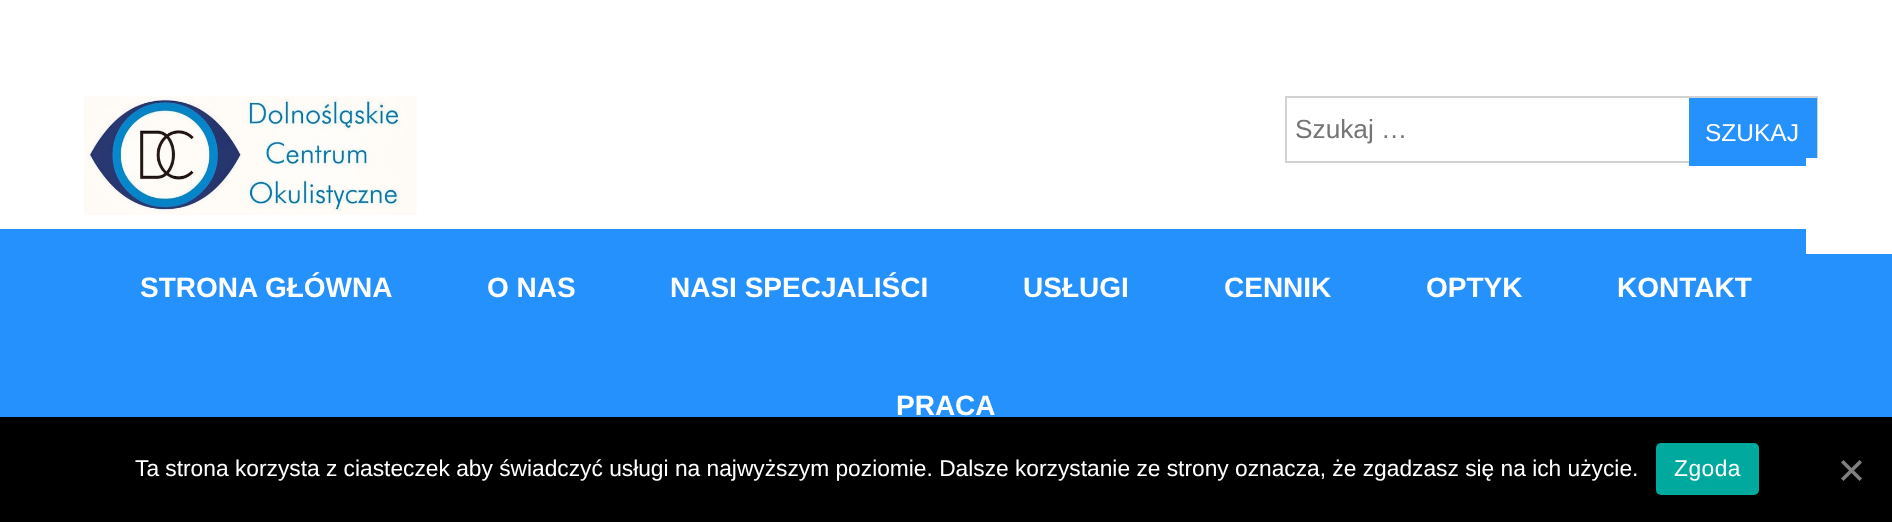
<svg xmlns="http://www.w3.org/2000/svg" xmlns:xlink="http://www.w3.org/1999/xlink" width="1892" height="522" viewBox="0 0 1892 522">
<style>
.cls-1{font:26.25px Liberation Sans;fill:#757575}
.cls-2{font:24.5px Liberation Sans;fill:#ffffff}
.cls-3{font:bold 28px Liberation Sans;fill:#ffffff}
.cls-4{font:22.75px Liberation Sans;fill:#ffffff}
.cls-5{font:22.75px Liberation Sans;letter-spacing:0.5px;fill:#ffffff}
</style>
<rect width="100%" height="100%" fill="#ffffff"/>
<image xlink:href="image0.png" x="84" y="96" width="333" height="119"/>
<rect fill="none" stroke="#d3d2d2" stroke-width="2" x="1286" y="97" width="531" height="65"/>
<rect fill="#2591fd" x="1689" y="98" width="128" height="68"/>
<rect fill="#2591fd" x="0" y="229" width="1892" height="188"/>
<rect fill="#ffffff" x="1806" y="158" width="86" height="96"/>
<rect fill="#000000" x="0" y="417" width="1892" height="105"/>
<rect fill="#00a99d" x="1656" y="443" width="103" height="52" rx="5"/>
<path fill="#808080" d="M1859.5 460L1862 462.5L1843.5 481L1841 478.5Z"/>
<path fill="#808080" d="M1841 462.5L1843.5 460L1862 478.5L1859.5 481Z"/>
<text class="cls-1" x="1295" y="138">Szukaj …</text>
<text class="cls-2" x="1705" y="141">SZUKAJ</text>
<text class="cls-3" x="140" y="297">STRONA GŁÓWNA</text>
<text class="cls-3" x="487" y="297">O NAS</text>
<text class="cls-3" x="670" y="297">NASI SPECJALIŚCI</text>
<text class="cls-3" x="1023" y="297">USŁUGI</text>
<text class="cls-3" x="1224" y="297">CENNIK</text>
<text class="cls-3" x="1426" y="297">OPTYK</text>
<text class="cls-3" x="1617" y="297">KONTAKT</text>
<text class="cls-3" x="896" y="415">PRACA</text>
<text class="cls-4" x="135" y="476">Ta strona korzysta z ciasteczek aby świadczyć usługi na najwyższym poziomie. Dalsze korzystanie ze strony oznacza, że zgadzasz się na ich użycie.</text>
<text class="cls-5" x="1674" y="476">Zgoda</text>
</svg>
